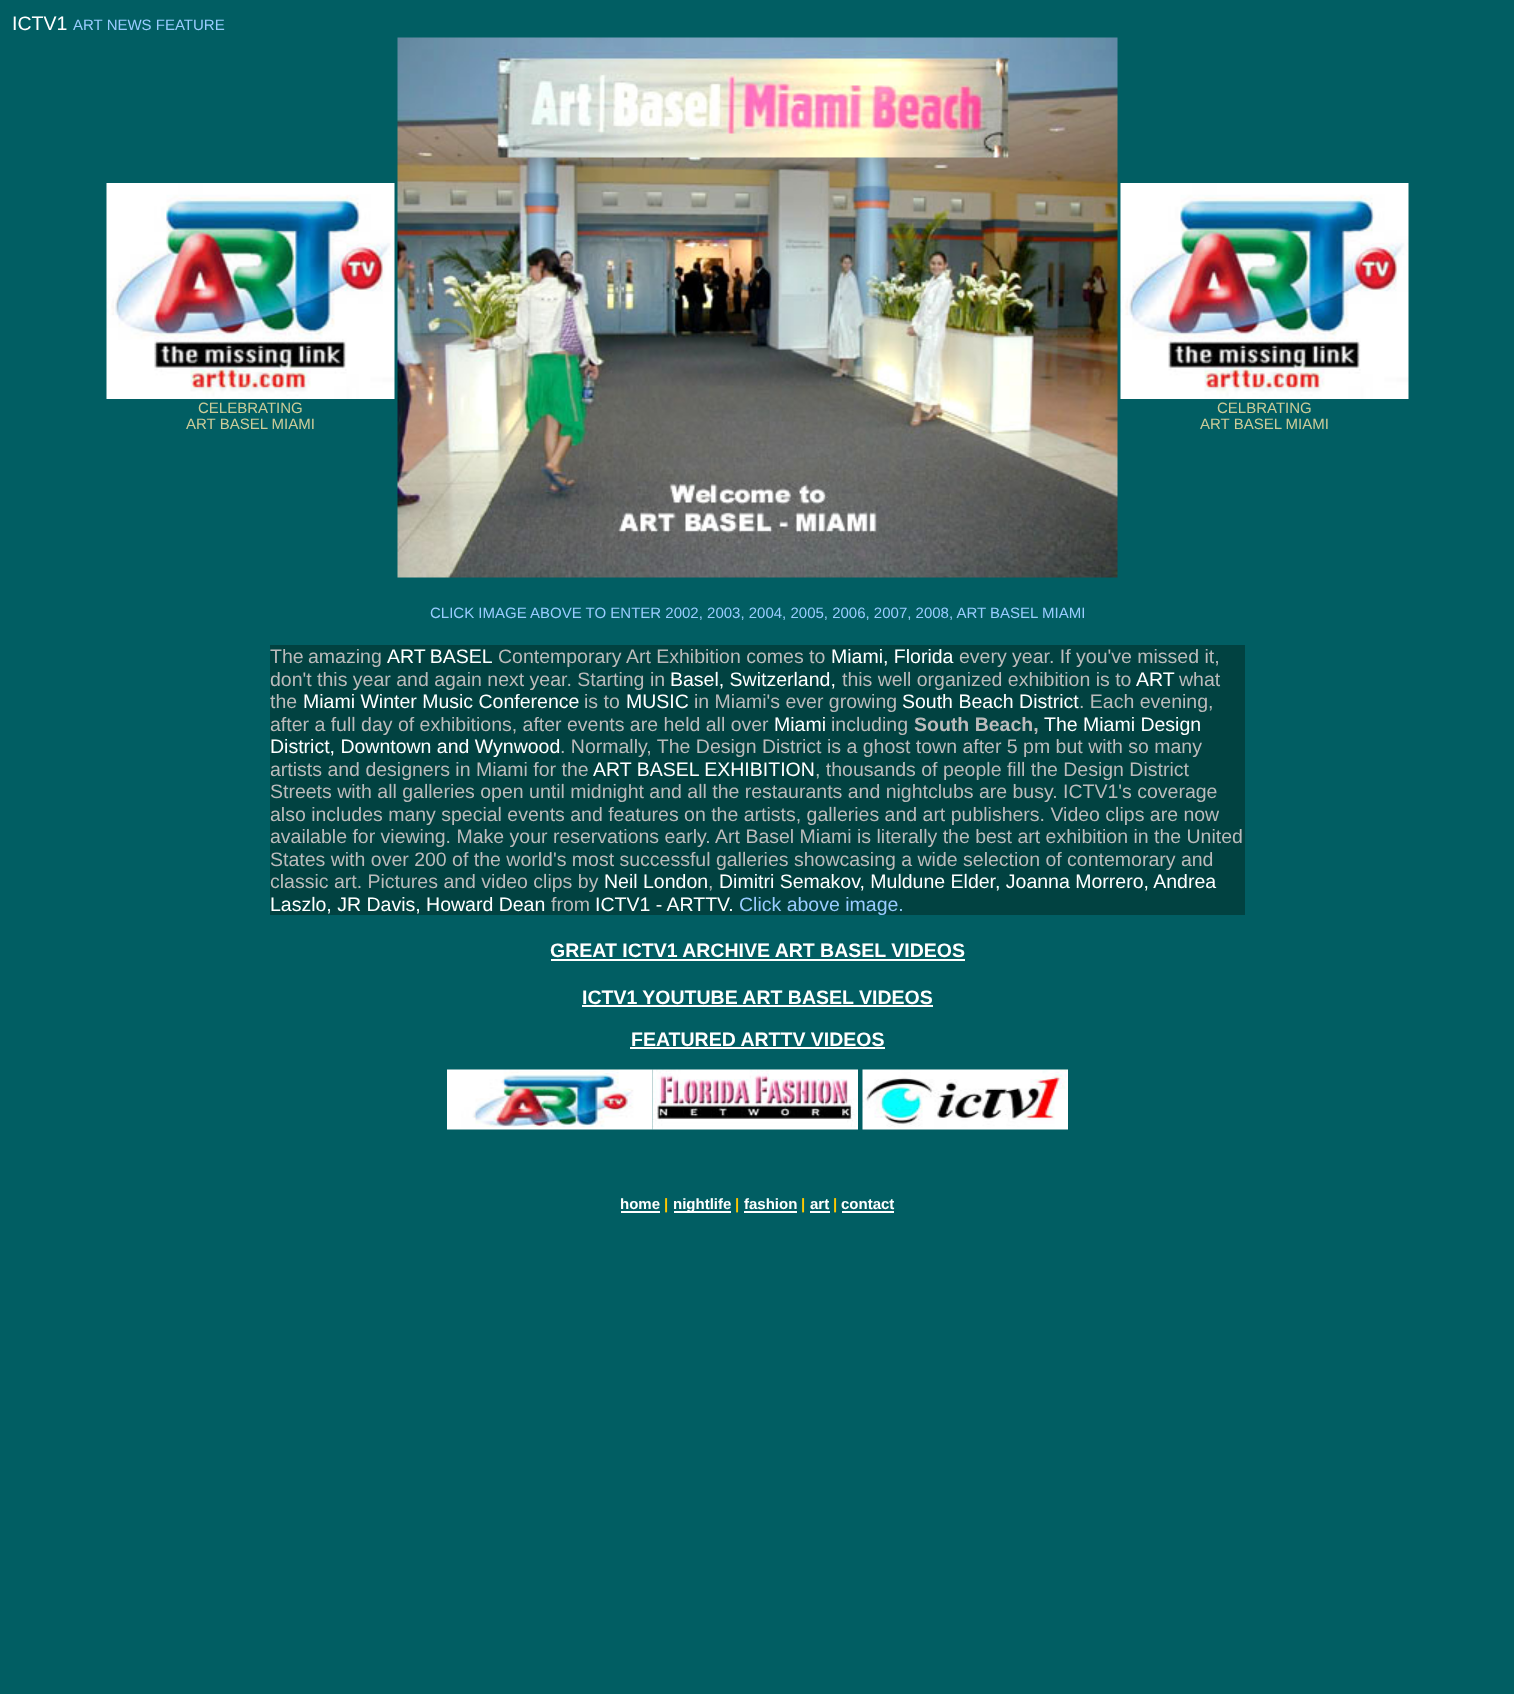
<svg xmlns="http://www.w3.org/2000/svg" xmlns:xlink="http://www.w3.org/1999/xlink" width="1514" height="1694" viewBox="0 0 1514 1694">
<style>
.cls-1{font:19.5px Liberation Sans;fill:#ffffff}
.cls-2{font:15px Liberation Sans;fill:#99ccff}
.cls-3{font:15px Liberation Sans;fill:#cccc99}
.cls-4{font:19.5px Liberation Sans;fill:#bbbbbb}
.cls-5{font:bold 19.5px Liberation Sans;fill:#bbbbbb}
.cls-6{font:19.5px Liberation Sans;fill:#99ccff}
.cls-7{font:bold 19.5px Liberation Sans;fill:#ffffff}
.cls-8{font:bold 15px Liberation Sans;fill:#ffffff}
.cls-9{font:bold 15px Liberation Sans;fill:#ffc800}
</style>
<rect width="100%" height="100%" fill="#015e63"/>
<image xlink:href="image0.png" x="106" y="183" width="289" height="216"/>
<image xlink:href="image1.png" x="397" y="37" width="721" height="541"/>
<image xlink:href="image2.png" x="1120" y="183" width="289" height="216"/>
<rect fill="#014241" x="270" y="645" width="975" height="270"/>
<rect fill="#ffffff" x="551" y="959" width="414" height="2"/>
<rect fill="#ffffff" x="582" y="1005" width="351" height="2"/>
<rect fill="#ffffff" x="630" y="1047" width="255" height="2"/>
<image xlink:href="image3.png" x="447" y="1069" width="206" height="61"/>
<image xlink:href="image4.png" x="652" y="1069" width="206" height="61"/>
<image xlink:href="image5.png" x="862" y="1069" width="206" height="61"/>
<rect fill="#ffffff" x="621" y="1211" width="39" height="2"/>
<rect fill="#ffffff" x="674" y="1211" width="57" height="2"/>
<rect fill="#ffffff" x="744" y="1211" width="53" height="2"/>
<rect fill="#ffffff" x="810" y="1211" width="20" height="2"/>
<rect fill="#ffffff" x="842" y="1211" width="52" height="2"/>
<text class="cls-1" x="12" y="30">ICTV1</text>
<text class="cls-2" x="73" y="30">ART NEWS FEATURE</text>
<text class="cls-3" x="198" y="413">CELEBRATING</text>
<text class="cls-3" x="186" y="429">ART BASEL MIAMI</text>
<text class="cls-3" x="1217" y="413">CELBRATING</text>
<text class="cls-3" x="1200" y="429">ART BASEL MIAMI</text>
<text class="cls-2" x="430" y="618">CLICK IMAGE ABOVE TO ENTER 2002, 2003, 2004, 2005, 2006, 2007, 2008, ART BASEL MIAMI</text>
<text class="cls-4" x="270" y="663" word-spacing="-1">The amazing</text>
<text class="cls-1" x="387" y="663" word-spacing="-1">ART BASEL</text>
<text class="cls-4" x="498" y="663">Contemporary Art Exhibition comes to</text>
<text class="cls-1" x="831" y="663">Miami, Florida</text>
<text class="cls-4" x="959" y="663">every year. If you've missed it,</text>
<text class="cls-4" x="270" y="686">don't this year and again next year. Starting in</text>
<text class="cls-1" x="670" y="686">Basel, Switzerland,</text>
<text class="cls-4" x="842" y="686">this well organized exhibition is to</text>
<text class="cls-1" x="1136" y="686">ART</text>
<text class="cls-4" x="1179" y="686">what</text>
<text class="cls-4" x="270" y="708">the</text>
<text class="cls-1" x="303" y="708">Miami Winter Music Conference</text>
<text class="cls-4" x="584" y="708">is to</text>
<text class="cls-1" x="626" y="708">MUSIC</text>
<text class="cls-4" x="694" y="708">in Miami's ever growing</text>
<text class="cls-1" x="902" y="708">South Beach District</text>
<text class="cls-4" x="1079" y="708">. Each evening,</text>
<text class="cls-4" x="270" y="731">after a full day of exhibitions, after events are held all over</text>
<text class="cls-1" x="774" y="731">Miami</text>
<text class="cls-4" x="831" y="731">including</text>
<text class="cls-5" x="914" y="731">South Beach,</text>
<text class="cls-1" x="1044" y="731">The Miami Design</text>
<text class="cls-1" x="270" y="753">District, Downtown and Wynwood</text>
<text class="cls-4" x="560" y="753">. Normally, The Design District is a ghost town after 5 pm but with so many</text>
<text class="cls-4" x="270" y="776">artists and designers in Miami for the</text>
<text class="cls-1" x="593" y="776">ART BASEL EXHIBITION</text>
<text class="cls-4" x="815" y="776">, thousands of people fill the Design District</text>
<text class="cls-4"><tspan x="270" y="798">Streets with all galleries open until midnight and all the restaurants and nightclubs are busy. ICTV1's coverage</tspan><tspan x="270" y="821">also includes many special events and features on the artists, galleries and art publishers. Video clips are now</tspan><tspan x="270" y="843">available for viewing. Make your reservations early. Art Basel Miami is literally the best art exhibition in the United</tspan><tspan x="270" y="866">States with over 200 of the world's most successful galleries showcasing a wide selection of contemorary and</tspan><tspan x="270" y="888">classic art. Pictures and video clips by</tspan></text>
<text class="cls-1" x="604" y="888">Neil London</text>
<text class="cls-4" x="708" y="888">,</text>
<text class="cls-1" x="719" y="888">Dimitri Semakov, Muldune Elder, Joanna Morrero, Andrea</text>
<text class="cls-1" x="270" y="911">Laszlo, JR Davis, Howard Dean</text>
<text class="cls-4" x="551" y="911">from</text>
<text class="cls-1" x="595" y="911">ICTV1 - ARTTV.</text>
<text class="cls-6" x="739" y="911">Click above image.</text>
<text class="cls-7" x="550" y="957">GREAT ICTV1 ARCHIVE ART BASEL VIDEOS</text>
<text class="cls-7" x="582" y="1004">ICTV1 YOUTUBE ART BASEL VIDEOS</text>
<text class="cls-7" x="631" y="1046">FEATURED ARTTV VIDEOS</text>
<text class="cls-8" x="620" y="1209">home</text>
<text class="cls-9" x="664" y="1209">|</text>
<text class="cls-8" x="673" y="1209">nightlife</text>
<text class="cls-9" x="735" y="1209">|</text>
<text class="cls-8" x="744" y="1209">fashion</text>
<text class="cls-9" x="801" y="1209">|</text>
<text class="cls-8" x="810" y="1209">art</text>
<text class="cls-9" x="833" y="1209">|</text>
<text class="cls-8" x="841" y="1209">contact</text>
</svg>
